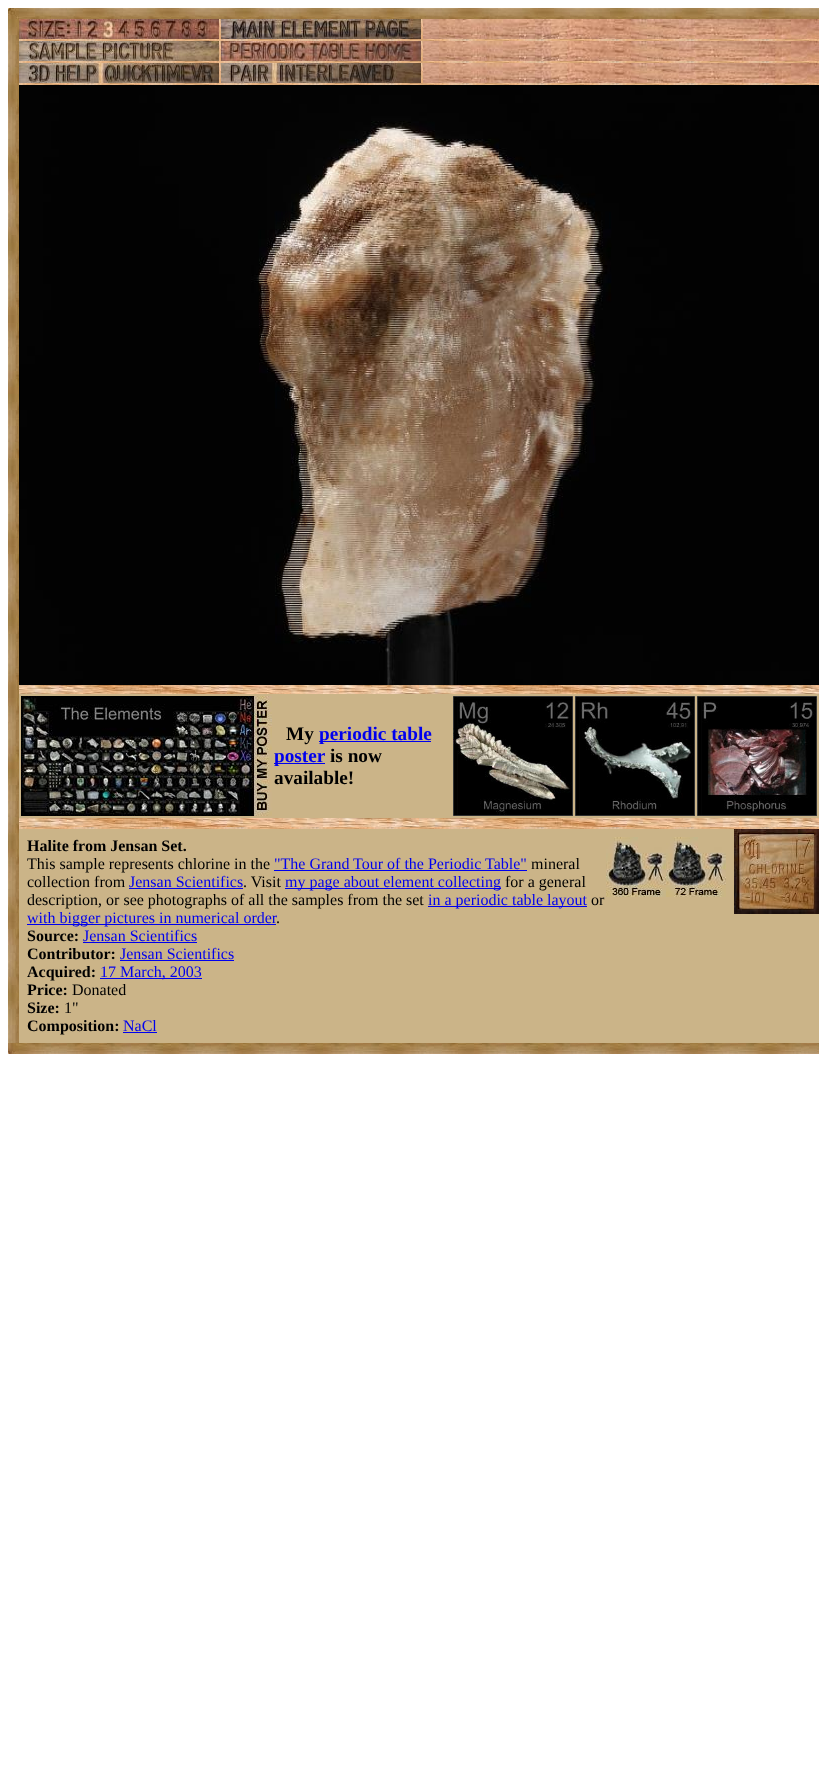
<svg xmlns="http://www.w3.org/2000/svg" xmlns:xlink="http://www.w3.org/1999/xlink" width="819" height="1773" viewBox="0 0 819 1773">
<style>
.cls-1{font:bold 19.25px Liberation Serif;fill:#000000}
.cls-2{font:bold 19.25px Liberation Serif;fill:#0000ee}
.cls-3{font:bold 16px Liberation Serif;fill:#000000}
.cls-4{font:16px Liberation Serif;fill:#000000}
.cls-5{font:16px Liberation Serif;fill:#0000ee}
</style>
<rect width="100%" height="100%" fill="#ffffff"/>
<image xlink:href="image0.png" x="8" y="8" width="11" height="11"/>
<image xlink:href="image1.png" x="19" y="8" width="800" height="11"/>
<image xlink:href="image2.png" x="8" y="19" width="11" height="1024"/>
<rect fill="#cbb488" x="19" y="694" width="800" height="349"/>
<image xlink:href="image3.png" x="19" y="19" width="200" height="20"/>
<image xlink:href="image4.png" x="219" y="19" width="2" height="20"/>
<image xlink:href="image5.png" x="221" y="19" width="200" height="20"/>
<image xlink:href="image4.png" x="421" y="19" width="2" height="20"/>
<image xlink:href="image6.png" x="423" y="19" width="396" height="20"/>
<image xlink:href="image7.png" x="19" y="39" width="800" height="2"/>
<image xlink:href="image8.png" x="19" y="41" width="200" height="20"/>
<image xlink:href="image4.png" x="219" y="41" width="2" height="20"/>
<image xlink:href="image9.png" x="221" y="41" width="200" height="20"/>
<image xlink:href="image4.png" x="421" y="41" width="2" height="20"/>
<image xlink:href="image6.png" x="423" y="41" width="396" height="20"/>
<image xlink:href="image7.png" x="19" y="61" width="800" height="2"/>
<image xlink:href="image10.png" x="19" y="63" width="200" height="20"/>
<image xlink:href="image4.png" x="219" y="63" width="2" height="20"/>
<image xlink:href="image11.png" x="221" y="63" width="200" height="20"/>
<image xlink:href="image4.png" x="421" y="63" width="2" height="20"/>
<image xlink:href="image6.png" x="423" y="63" width="396" height="20"/>
<image xlink:href="image7.png" x="19" y="83" width="800" height="2"/>
<image xlink:href="image12.png" x="19" y="85" width="800" height="600"/>
<image xlink:href="image13.png" x="19" y="685" width="800" height="9"/>
<image xlink:href="image14.png" x="21" y="696" width="251" height="120"/>
<rect fill="#0000ee" x="319" y="741" width="112" height="1"/>
<rect fill="#0000ee" x="274" y="763" width="51" height="1"/>
<image xlink:href="image15.png" x="453" y="696" width="120" height="120"/>
<image xlink:href="image16.png" x="575" y="696" width="120" height="120"/>
<image xlink:href="image17.png" x="697" y="696" width="120" height="120"/>
<image xlink:href="image13.png" x="19" y="818" width="800" height="9"/>
<image xlink:href="image7.png" x="19" y="827" width="800" height="2"/>
<image xlink:href="image18.png" x="606" y="837" width="60" height="60"/>
<image xlink:href="image19.png" x="666" y="837" width="60" height="60"/>
<rect fill="#0000ee" x="274" y="870" width="253" height="1"/>
<rect fill="#0000ee" x="129" y="888" width="114" height="1"/>
<rect fill="#0000ee" x="285" y="888" width="216" height="1"/>
<rect fill="#0000ee" x="428" y="906" width="159" height="1"/>
<rect fill="#0000ee" x="27" y="924" width="249" height="1"/>
<rect fill="#0000ee" x="83" y="942" width="114" height="1"/>
<rect fill="#0000ee" x="120" y="960" width="114" height="1"/>
<rect fill="#0000ee" x="100" y="978" width="102" height="1"/>
<rect fill="#0000ee" x="123" y="1032" width="34" height="1"/>
<image xlink:href="image20.png" x="734" y="829" width="85" height="85"/>
<image xlink:href="image21.png" x="8" y="1043" width="11" height="11"/>
<image xlink:href="image22.png" x="19" y="1043" width="800" height="11"/>
<text class="cls-1" x="286" y="740">My</text>
<text class="cls-2" x="319" y="740">periodic table</text>
<text class="cls-2" x="274" y="762">poster</text>
<text class="cls-1" x="330" y="762">is now</text>
<text class="cls-1" x="274" y="784">available!</text>
<text class="cls-3" x="27" y="851">Halite from Jensan Set.</text>
<text class="cls-4" x="27" y="869">This sample represents chlorine in the</text>
<text class="cls-5" x="274" y="869">"The Grand Tour of the Periodic Table"</text>
<text class="cls-4" x="531" y="869">mineral</text>
<text class="cls-4" x="27" y="887">collection from</text>
<text class="cls-5" x="129" y="887">Jensan Scientifics</text>
<text class="cls-4" x="243" y="887">. Visit</text>
<text class="cls-5" x="285" y="887">my page about element collecting</text>
<text class="cls-4" x="505" y="887">for a general</text>
<text class="cls-4" x="27" y="905">description, or see photographs of all the samples from the set</text>
<text class="cls-5" x="428" y="905">in a periodic table layout</text>
<text class="cls-4" x="591" y="905">or</text>
<text class="cls-5" x="27" y="923">with bigger pictures in numerical order</text>
<text class="cls-4" x="276" y="923">.</text>
<text class="cls-3" x="27" y="941">Source:</text>
<text class="cls-5" x="83" y="941">Jensan Scientifics</text>
<text class="cls-3" x="27" y="959">Contributor:</text>
<text class="cls-5" x="120" y="959">Jensan Scientifics</text>
<text class="cls-3" x="27" y="977">Acquired:</text>
<text class="cls-5" x="100" y="977">17 March, 2003</text>
<text class="cls-3" x="27" y="995">Price:</text>
<text class="cls-4" x="72" y="995">Donated</text>
<text class="cls-3" x="27" y="1013">Size:</text>
<text class="cls-4" x="64" y="1013">1"</text>
<text class="cls-3" x="27" y="1031">Composition:</text>
<text class="cls-5" x="123" y="1031">NaCl</text>
</svg>
